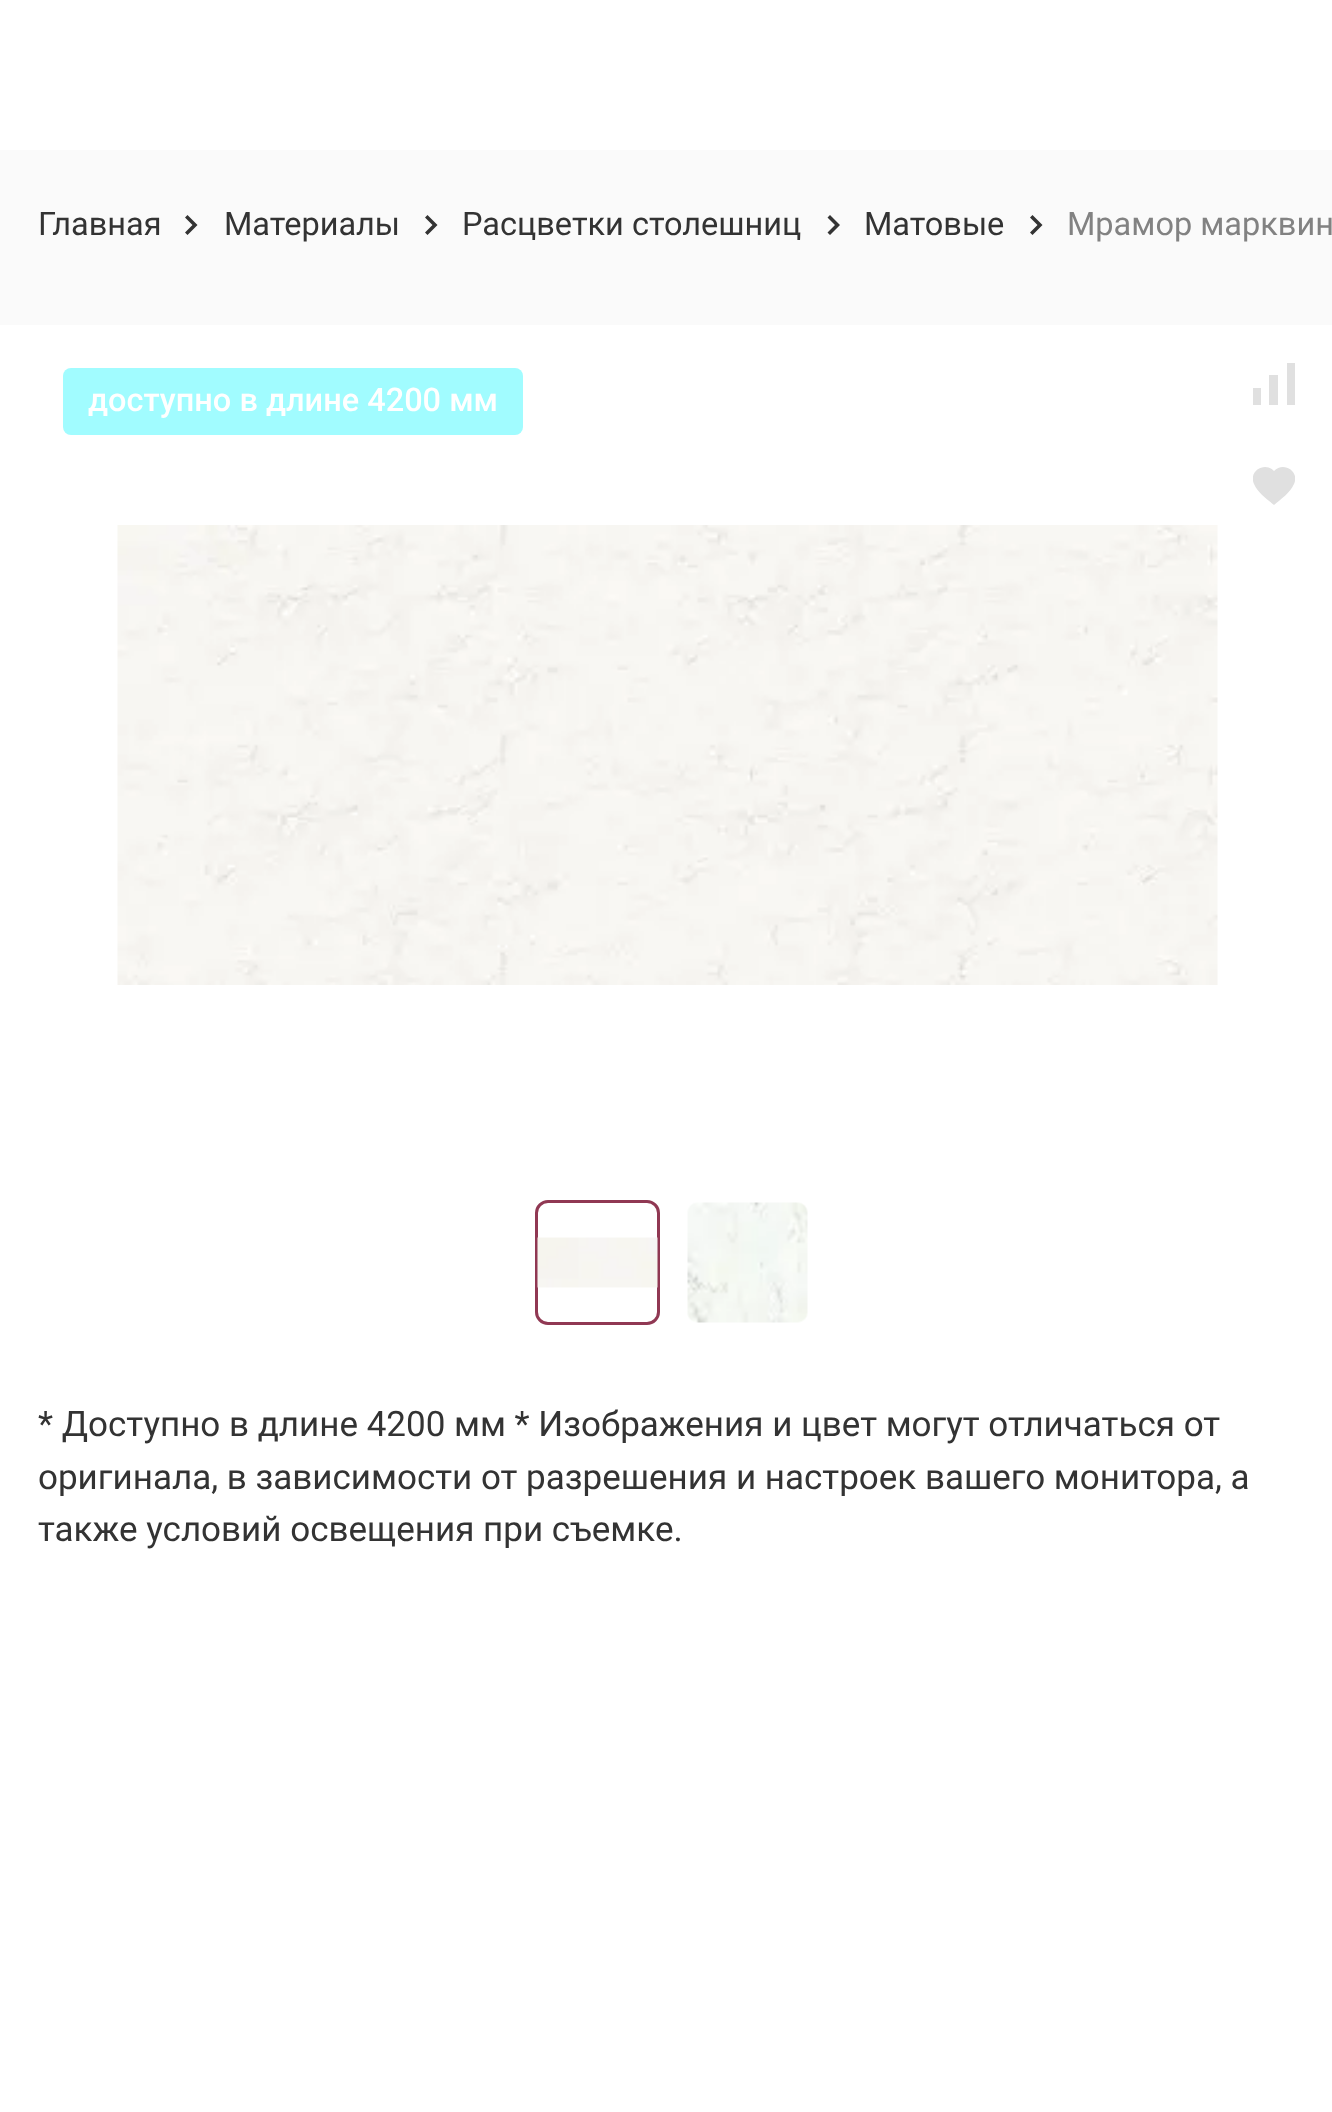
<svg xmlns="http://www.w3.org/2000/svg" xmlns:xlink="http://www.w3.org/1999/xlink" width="1332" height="2112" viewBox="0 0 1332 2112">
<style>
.cls-1{font:32.5px Roboto;fill:#333333}
.cls-2{font:32.5px Roboto;fill:#828282}
.cls-3{font:500 32.5px Roboto;fill:#ffffff}
.cls-4{font:35px Roboto;fill:#333333}
</style>
<defs>
<clipPath id="clip1"><rect x="1253" y="363" width="42" height="42"/></clipPath>
<clipPath id="clip2"><rect x="1253" y="465" width="42" height="43"/></clipPath>
</defs>
<rect width="100%" height="100%" fill="#ffffff"/>
<rect fill="#fafafa" x="0" y="150" width="1332" height="175"/>
<path fill="#333333" d="M185 232.5L192.5 225L185 217.5L187.5 215L197.5 225L187.5 235Z"/>
<path fill="#333333" d="M425 232.5L432.5 225L425 217.5L427.5 215L437.5 225L427.5 235Z"/>
<path fill="#333333" d="M827.5 232.5L835 225L827.5 217.5L830 215L840 225L830 235Z"/>
<path fill="#333333" d="M1030 232.5L1037.5 225L1030 217.5L1032.5 215L1042.5 225L1032.5 235Z"/>
<rect fill="#a1fcff" x="63" y="368" width="460" height="67" rx="8"/>
<g clip-path="url(#clip1)">
<path fill="#e0e0e0" d="M1269 405V375H1278V405ZM1287 405V362H1295V405ZM1252 405V388H1261V405Z"/>
</g>
<g clip-path="url(#clip2)">
<path fill="#e0e0e0" d="M1274 505C1267 499 1258 493 1254 484C1248 471 1265 461 1274 471C1283 461 1300 471 1294 484C1290 493 1281 499 1274 505Z"/>
</g>
<image xlink:href="image0.png" x="117" y="525" width="1101" height="460"/>
<rect fill="none" stroke="#903853" stroke-width="3" x="536.5" y="1201.5" width="122" height="122" rx="11.5"/>
<image xlink:href="image1.png" x="537" y="1237" width="121" height="51"/>
<image xlink:href="image2.png" x="687" y="1202" width="121" height="121"/>
<text class="cls-1" x="38" y="235">Главная</text>
<text class="cls-1" x="224" y="235">Материалы</text>
<text class="cls-1" x="462" y="235">Расцветки столешниц</text>
<text class="cls-1" x="864" y="235">Матовые</text>
<text class="cls-2" x="1067" y="235">Мрамор марквин</text>
<text class="cls-3" x="88" y="411">доступно в длине 4200 мм</text>
<text class="cls-4"><tspan x="38" y="1436">* Доступно в длине 4200 мм * Изображения и цвет могут отличаться от</tspan><tspan x="38" y="1489">оригинала, в зависимости от разрешения и настроек вашего монитора, а</tspan><tspan x="38" y="1541">также условий освещения при съемке.</tspan></text>
</svg>
